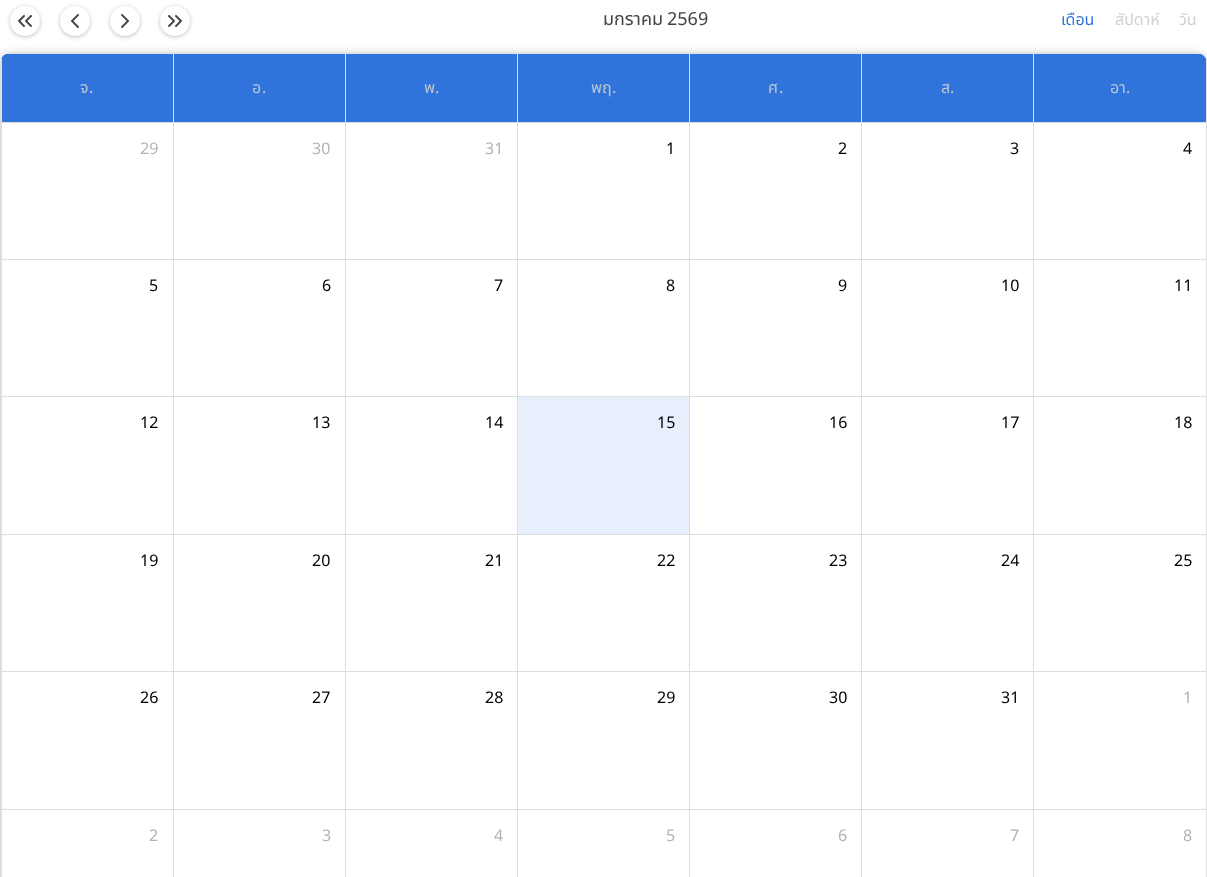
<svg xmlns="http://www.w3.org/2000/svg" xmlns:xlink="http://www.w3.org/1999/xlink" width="1207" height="877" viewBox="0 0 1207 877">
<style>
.cls-1{font:18px Noto Sans Thai;fill:#444444}
.cls-2{font:18px Noto Sans;fill:#444444}
.cls-3{font:16px Noto Sans Thai;fill:#3074db}
.cls-4{font:16px Noto Sans Thai;fill:#d1d1d1}
.cls-5{font:16px Noto Sans Thai;fill:#b8c5d3}
.cls-6{font:500 16px Noto Sans;fill:#b8c5d3}
.cls-7{font:16px Noto Sans;fill:#b3b3b3}
.cls-8{font:16px Noto Sans;fill:#000000}
</style>
<defs>
<clipPath id="clip1"><rect x="0" y="53" width="1207" height="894" rx="10"/></clipPath>
</defs>
<rect width="100%" height="100%" fill="#ffffff"/>
<rect fill="#000000" fill-opacity="0.25" filter="blur(2px)" x="10" y="7" width="30" height="30" rx="15"/>
<circle fill="#ffffff" cx="25" cy="21" r="15"/>
<image xlink:href="image0.png" x="18" y="15" width="14" height="12"/>
<rect fill="#000000" fill-opacity="0.25" filter="blur(2px)" x="60" y="7" width="30" height="30" rx="15"/>
<circle fill="#ffffff" cx="75" cy="21" r="15"/>
<image xlink:href="image1.png" x="71" y="14" width="8" height="14"/>
<rect fill="#000000" fill-opacity="0.25" filter="blur(2px)" x="110" y="7" width="30" height="30" rx="15"/>
<circle fill="#ffffff" cx="125" cy="21" r="15"/>
<image xlink:href="image2.png" x="121" y="14" width="8" height="14"/>
<rect fill="#000000" fill-opacity="0.25" filter="blur(2px)" x="160" y="7" width="30" height="30" rx="15"/>
<circle fill="#ffffff" cx="175" cy="21" r="15"/>
<image xlink:href="image3.png" x="168" y="15" width="14" height="12"/>
<rect fill="#000000" fill-opacity="0.25" filter="blur(4px)" x="0" y="54" width="1207" height="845" rx="10"/>
<rect fill="#ffffff" x="0" y="53" width="1207" height="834" rx="10"/>
<g clip-path="url(#clip1)">
<rect fill="#dddddd" x="0" y="53" width="1207" height="1"/>
<rect fill="#dddddd" x="0" y="53" width="1" height="824"/>
<rect fill="#dddddd" x="1206" y="54" width="1" height="69"/>
<rect fill="#3074db" x="1" y="54" width="172" height="68"/>
</g>
<rect fill="#dddddd" x="1033" y="122" width="173" height="1"/>
<rect fill="#dddddd" x="1033" y="54" width="1" height="69"/>
<rect fill="#dddddd" x="861" y="122" width="173" height="1"/>
<rect fill="#dddddd" x="861" y="54" width="1" height="69"/>
<rect fill="#dddddd" x="689" y="122" width="173" height="1"/>
<rect fill="#dddddd" x="689" y="54" width="1" height="69"/>
<rect fill="#dddddd" x="517" y="122" width="173" height="1"/>
<rect fill="#dddddd" x="517" y="54" width="1" height="69"/>
<rect fill="#dddddd" x="345" y="122" width="173" height="1"/>
<rect fill="#dddddd" x="345" y="54" width="1" height="69"/>
<rect fill="#dddddd" x="173" y="122" width="173" height="1"/>
<rect fill="#dddddd" x="173" y="54" width="1" height="69"/>
<rect fill="#dddddd" x="1" y="122" width="173" height="1"/>
<g clip-path="url(#clip1)">
<rect fill="#dddddd" x="1" y="54" width="1" height="69"/>
</g>
<rect fill="#3074db" x="174" y="54" width="171" height="68"/>
<rect fill="#3074db" x="346" y="54" width="171" height="68"/>
<rect fill="#3074db" x="518" y="54" width="171" height="68"/>
<rect fill="#3074db" x="690" y="54" width="171" height="68"/>
<rect fill="#3074db" x="862" y="54" width="171" height="68"/>
<g clip-path="url(#clip1)">
<rect fill="#3074db" x="1034" y="54" width="172" height="68"/>
</g>
<rect fill="#dddddd" x="1206" y="123" width="1" height="754"/>
<rect fill="#dddddd" x="1033" y="259" width="173" height="1"/>
<rect fill="#dddddd" x="1033" y="396" width="173" height="1"/>
<rect fill="#dddddd" x="1033" y="534" width="173" height="1"/>
<rect fill="#dddddd" x="1033" y="671" width="173" height="1"/>
<rect fill="#dddddd" x="1033" y="809" width="173" height="1"/>
<rect fill="#dddddd" x="1033" y="809" width="1" height="68"/>
<rect fill="#dddddd" x="861" y="809" width="173" height="1"/>
<rect fill="#dddddd" x="1033" y="671" width="1" height="139"/>
<rect fill="#dddddd" x="861" y="671" width="173" height="1"/>
<rect fill="#dddddd" x="1033" y="534" width="1" height="138"/>
<rect fill="#dddddd" x="861" y="534" width="173" height="1"/>
<rect fill="#dddddd" x="1033" y="396" width="1" height="139"/>
<rect fill="#dddddd" x="861" y="396" width="173" height="1"/>
<rect fill="#dddddd" x="1033" y="259" width="1" height="138"/>
<rect fill="#dddddd" x="861" y="259" width="173" height="1"/>
<rect fill="#dddddd" x="861" y="809" width="1" height="68"/>
<rect fill="#dddddd" x="689" y="809" width="173" height="1"/>
<rect fill="#dddddd" x="861" y="671" width="1" height="139"/>
<rect fill="#dddddd" x="689" y="671" width="173" height="1"/>
<rect fill="#dddddd" x="861" y="534" width="1" height="138"/>
<rect fill="#dddddd" x="689" y="534" width="173" height="1"/>
<rect fill="#dddddd" x="861" y="396" width="1" height="139"/>
<rect fill="#dddddd" x="689" y="396" width="173" height="1"/>
<rect fill="#dddddd" x="861" y="259" width="1" height="138"/>
<rect fill="#dddddd" x="689" y="259" width="173" height="1"/>
<rect fill="#dddddd" x="689" y="809" width="1" height="68"/>
<rect fill="#dddddd" x="517" y="809" width="173" height="1"/>
<rect fill="#dddddd" x="689" y="671" width="1" height="139"/>
<rect fill="#dddddd" x="517" y="671" width="173" height="1"/>
<rect fill="#dddddd" x="689" y="534" width="1" height="138"/>
<rect fill="#dddddd" x="517" y="534" width="173" height="1"/>
<rect fill="#dddddd" x="689" y="396" width="1" height="139"/>
<rect fill="#dddddd" x="517" y="396" width="173" height="1"/>
<rect fill="#dddddd" x="689" y="259" width="1" height="138"/>
<rect fill="#dddddd" x="517" y="259" width="173" height="1"/>
<rect fill="#dddddd" x="517" y="809" width="1" height="68"/>
<rect fill="#dddddd" x="345" y="809" width="173" height="1"/>
<rect fill="#dddddd" x="517" y="671" width="1" height="139"/>
<rect fill="#dddddd" x="345" y="671" width="173" height="1"/>
<rect fill="#dddddd" x="517" y="534" width="1" height="138"/>
<rect fill="#dddddd" x="345" y="534" width="173" height="1"/>
<rect fill="#dddddd" x="517" y="396" width="1" height="139"/>
<rect fill="#dddddd" x="345" y="396" width="173" height="1"/>
<rect fill="#dddddd" x="517" y="259" width="1" height="138"/>
<rect fill="#dddddd" x="345" y="259" width="173" height="1"/>
<rect fill="#dddddd" x="345" y="809" width="1" height="68"/>
<rect fill="#dddddd" x="173" y="809" width="173" height="1"/>
<rect fill="#dddddd" x="345" y="671" width="1" height="139"/>
<rect fill="#dddddd" x="173" y="671" width="173" height="1"/>
<rect fill="#dddddd" x="345" y="534" width="1" height="138"/>
<rect fill="#dddddd" x="173" y="534" width="173" height="1"/>
<rect fill="#dddddd" x="345" y="396" width="1" height="139"/>
<rect fill="#dddddd" x="173" y="396" width="173" height="1"/>
<rect fill="#dddddd" x="345" y="259" width="1" height="138"/>
<rect fill="#dddddd" x="173" y="259" width="173" height="1"/>
<rect fill="#dddddd" x="173" y="809" width="1" height="68"/>
<rect fill="#dddddd" x="1" y="809" width="173" height="1"/>
<rect fill="#dddddd" x="173" y="671" width="1" height="139"/>
<rect fill="#dddddd" x="1" y="671" width="173" height="1"/>
<rect fill="#dddddd" x="173" y="534" width="1" height="138"/>
<rect fill="#dddddd" x="1" y="534" width="173" height="1"/>
<rect fill="#dddddd" x="173" y="396" width="1" height="139"/>
<rect fill="#dddddd" x="1" y="396" width="173" height="1"/>
<rect fill="#dddddd" x="173" y="259" width="1" height="138"/>
<rect fill="#dddddd" x="1" y="259" width="173" height="1"/>
<rect fill="#dddddd" x="173" y="123" width="1" height="137"/>
<rect fill="#dddddd" x="345" y="123" width="1" height="137"/>
<rect fill="#dddddd" x="517" y="123" width="1" height="137"/>
<rect fill="#dddddd" x="689" y="123" width="1" height="137"/>
<rect fill="#dddddd" x="861" y="123" width="1" height="137"/>
<rect fill="#dddddd" x="1033" y="123" width="1" height="137"/>
<rect fill="#dddddd" x="1" y="809" width="1" height="68"/>
<rect fill="#dddddd" x="1" y="671" width="1" height="139"/>
<rect fill="#dddddd" x="1" y="534" width="1" height="138"/>
<rect fill="#dddddd" x="1" y="396" width="1" height="139"/>
<rect fill="#dddddd" x="1" y="123" width="1" height="274"/>
<rect fill="#e8effc" x="518" y="397" width="171" height="137"/>
<text class="cls-1" x="603" y="25">มกราคม</text>
<text class="cls-2" x="667" y="25">2569</text>
<text class="cls-3" x="1061" y="25">เดือน</text>
<text class="cls-4" x="1115" y="25">สัปดาห์</text>
<text class="cls-4" x="1179" y="25">วัน</text>
<text class="cls-5" x="80" y="93">จ</text>
<text class="cls-6" x="89" y="93">.</text>
<text class="cls-5" x="252" y="93">อ</text>
<text class="cls-6" x="262" y="93">.</text>
<text class="cls-5" x="424" y="93">พ</text>
<text class="cls-6" x="435" y="93">.</text>
<text class="cls-5" x="591" y="93">พฤ</text>
<text class="cls-6" x="612" y="93">.</text>
<text class="cls-5" x="768" y="93">ศ</text>
<text class="cls-6" x="779" y="93">.</text>
<text class="cls-5" x="941" y="93">ส</text>
<text class="cls-6" x="950" y="93">.</text>
<text class="cls-5" x="1110" y="93">อา</text>
<text class="cls-6" x="1126" y="93">.</text>
<text class="cls-7" x="140" y="154">29</text>
<text class="cls-7" x="312" y="154">30</text>
<text class="cls-7" x="485" y="154">31</text>
<text class="cls-8" x="666" y="154">1</text>
<text class="cls-8" x="838" y="154">2</text>
<text class="cls-8" x="1010" y="154">3</text>
<text class="cls-8" x="1183" y="154">4</text>
<text class="cls-8" x="149" y="291">5</text>
<text class="cls-8" x="322" y="291">6</text>
<text class="cls-8" x="494" y="291">7</text>
<text class="cls-8" x="666" y="291">8</text>
<text class="cls-8" x="838" y="291">9</text>
<text class="cls-8" x="1001" y="291">10</text>
<text class="cls-8" x="1174" y="291">11</text>
<text class="cls-8" x="140" y="428">12</text>
<text class="cls-8" x="312" y="428">13</text>
<text class="cls-8" x="485" y="428">14</text>
<text class="cls-8" x="657" y="428">15</text>
<text class="cls-8" x="829" y="428">16</text>
<text class="cls-8" x="1001" y="428">17</text>
<text class="cls-8" x="1174" y="428">18</text>
<text class="cls-8" x="140" y="566">19</text>
<text class="cls-8" x="312" y="566">20</text>
<text class="cls-8" x="485" y="566">21</text>
<text class="cls-8" x="657" y="566">22</text>
<text class="cls-8" x="829" y="566">23</text>
<text class="cls-8" x="1001" y="566">24</text>
<text class="cls-8" x="1174" y="566">25</text>
<text class="cls-8" x="140" y="703">26</text>
<text class="cls-8" x="312" y="703">27</text>
<text class="cls-8" x="485" y="703">28</text>
<text class="cls-8" x="657" y="703">29</text>
<text class="cls-8" x="829" y="703">30</text>
<text class="cls-8" x="1001" y="703">31</text>
<text class="cls-7" x="1183" y="703">1</text>
<text class="cls-7" x="149" y="841">2</text>
<text class="cls-7" x="322" y="841">3</text>
<text class="cls-7" x="494" y="841">4</text>
<text class="cls-7" x="666" y="841">5</text>
<text class="cls-7" x="838" y="841">6</text>
<text class="cls-7" x="1010" y="841">7</text>
<text class="cls-7" x="1183" y="841">8</text>
</svg>
